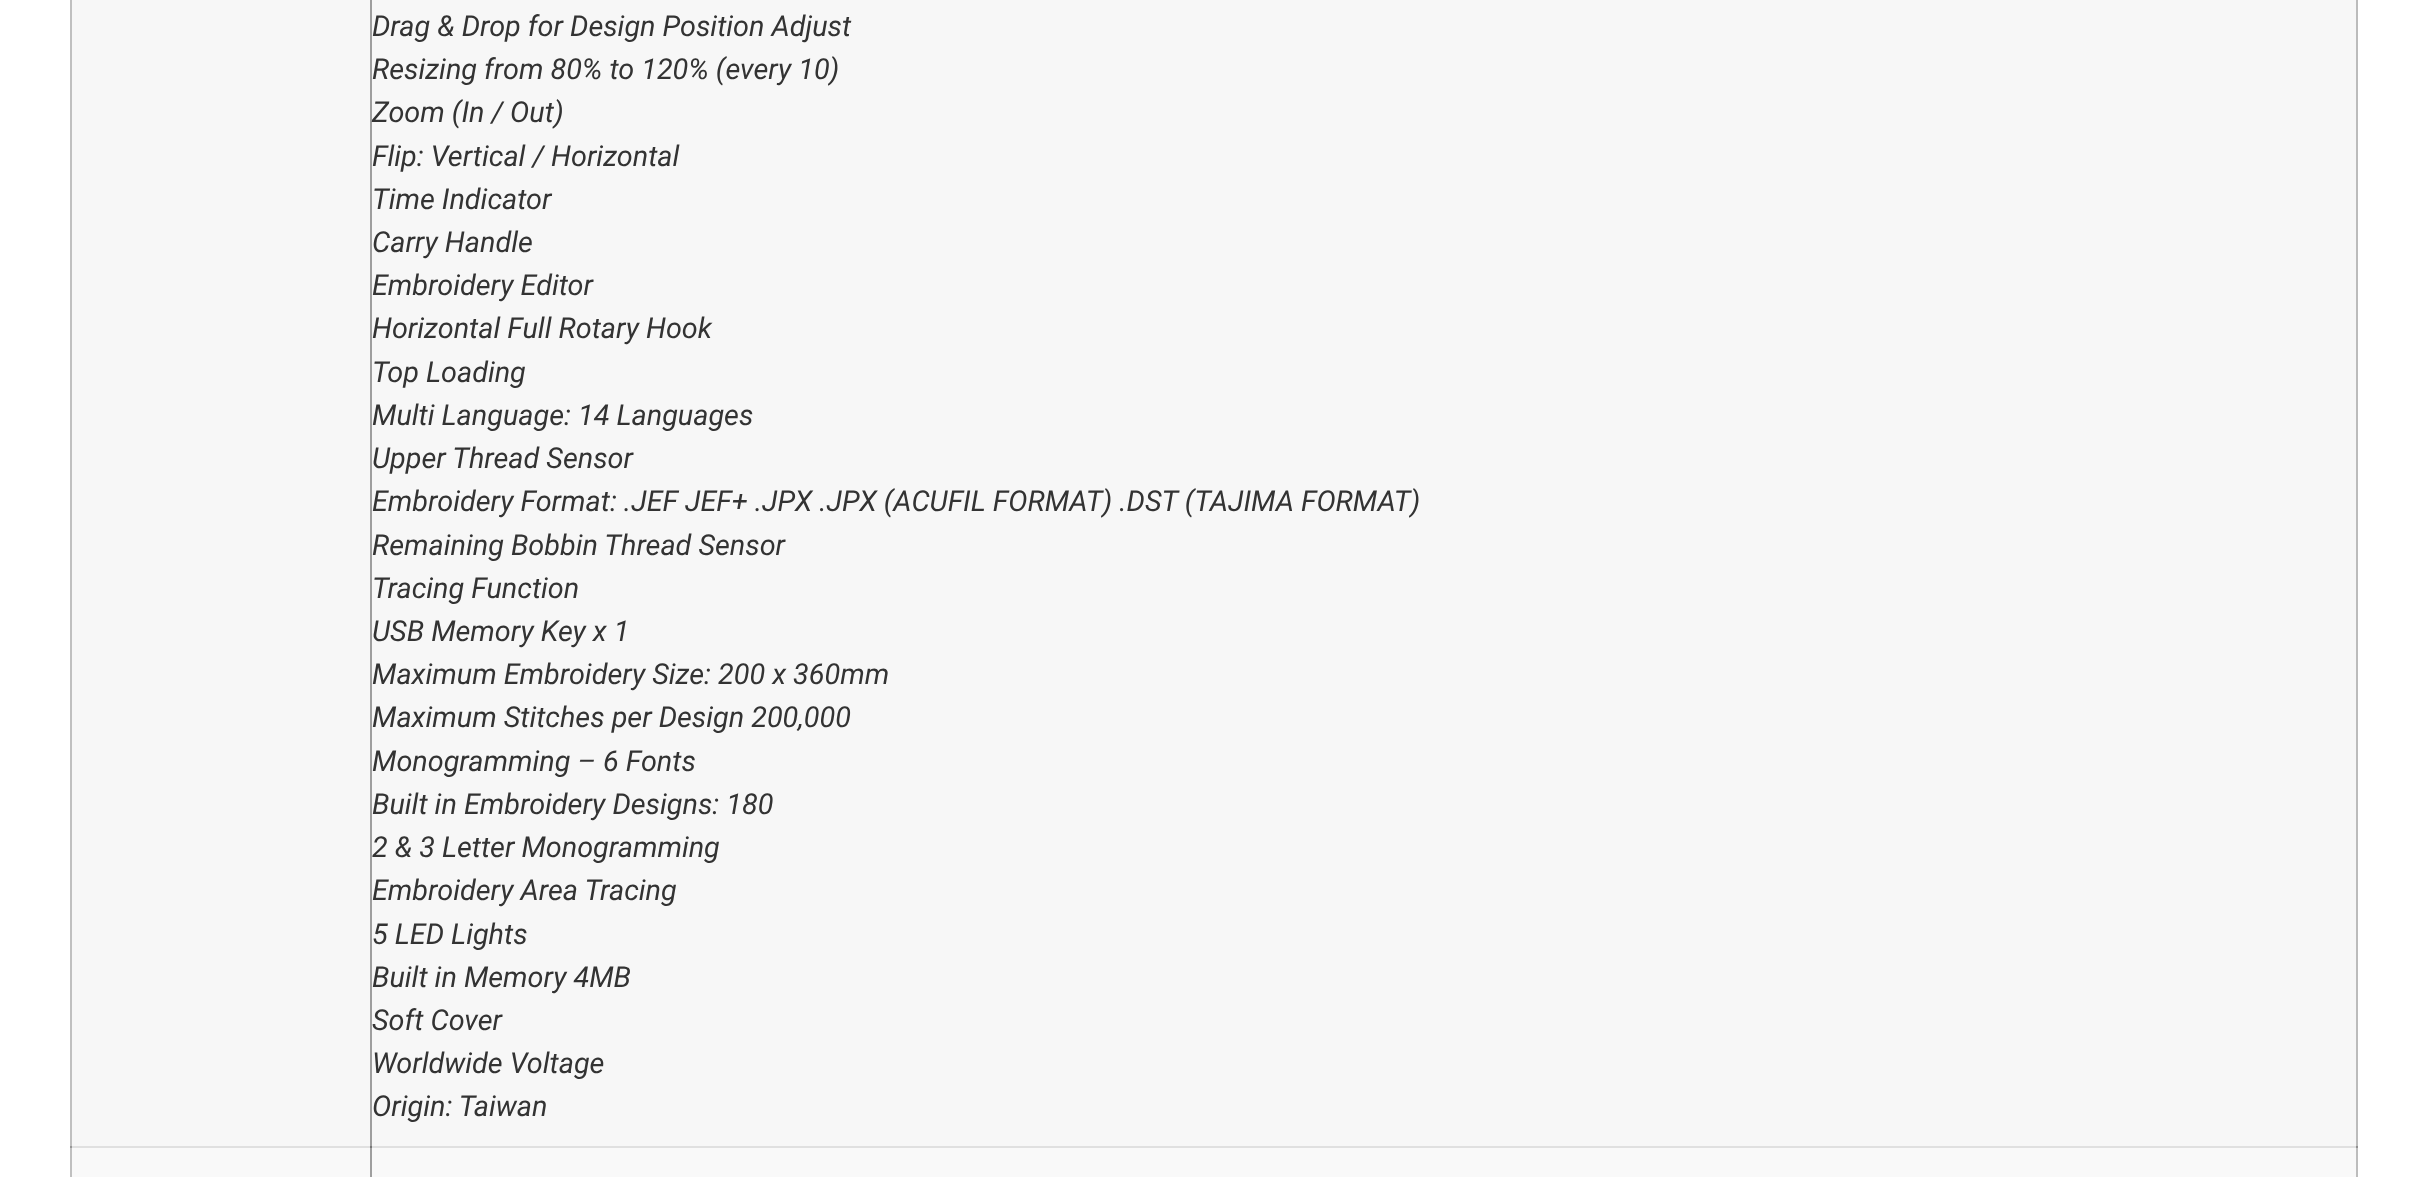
<svg xmlns="http://www.w3.org/2000/svg" xmlns:xlink="http://www.w3.org/1999/xlink" width="2427" height="1177" viewBox="0 0 2427 1177">
<style>
.cls-1{font:italic 28.8px Roboto;fill:#333333}
</style>
<rect width="100%" height="100%" fill="#ffffff"/>
<rect fill="#c0c0c0" x="70" y="0" width="2" height="1177"/>
<rect fill="#f7f7f7" x="72" y="0" width="298" height="1146"/>
<rect fill="#9e9e9e" x="370" y="0" width="2" height="1146"/>
<rect fill="#f7f7f7" x="372" y="0" width="1984" height="1146"/>
<rect fill="#bcbcbc" x="2356" y="0" width="2" height="1146"/>
<rect fill="#f9f9f9" x="72" y="1148" width="298" height="29"/>
<rect fill="#e0e0e0" x="72" y="1146" width="2286" height="2"/>
<rect fill="#9f9f9f" x="370" y="1146" width="2" height="31"/>
<rect fill="#777777" x="370" y="1146" width="2" height="2"/>
<rect fill="#979797" x="70" y="1146" width="2" height="2"/>
<rect fill="#f9f9f9" x="372" y="1148" width="1984" height="29"/>
<rect fill="#bdbdbd" x="2356" y="1146" width="2" height="31"/>
<rect fill="#8f8f8f" x="2356" y="1146" width="2" height="2"/>
<text class="cls-1"><tspan x="372" y="36">Drag &amp; Drop for Design Position Adjust</tspan><tspan x="372" y="79">Resizing from 80% to 120% (every 10)</tspan><tspan x="372" y="122">Zoom (In / Out)</tspan><tspan x="372" y="166">Flip: Vertical / Horizontal</tspan><tspan x="372" y="209">Time Indicator</tspan><tspan x="372" y="252">Carry Handle</tspan><tspan x="372" y="295">Embroidery Editor</tspan><tspan x="372" y="338">Horizontal Full Rotary Hook</tspan><tspan x="372" y="382">Top Loading</tspan><tspan x="372" y="425">Multi Language: 14 Languages</tspan><tspan x="372" y="468">Upper Thread Sensor</tspan><tspan x="372" y="511">Embroidery Format: .JEF JEF+ .JPX .JPX (ACUFIL FORMAT) .DST (TAJIMA FORMAT)</tspan><tspan x="372" y="555">Remaining Bobbin Thread Sensor</tspan><tspan x="372" y="598">Tracing Function</tspan><tspan x="372" y="641">USB Memory Key x 1</tspan><tspan x="372" y="684">Maximum Embroidery Size: 200 x 360mm</tspan><tspan x="372" y="727">Maximum Stitches per Design 200,000</tspan><tspan x="372" y="771">Monogramming – 6 Fonts</tspan><tspan x="372" y="814">Built in Embroidery Designs: 180</tspan><tspan x="372" y="857">2 &amp; 3 Letter Monogramming</tspan><tspan x="372" y="900">Embroidery Area Tracing</tspan><tspan x="372" y="944">5 LED Lights</tspan><tspan x="372" y="987">Built in Memory 4MB</tspan><tspan x="372" y="1030">Soft Cover</tspan><tspan x="372" y="1073">Worldwide Voltage</tspan><tspan x="372" y="1116">Origin: Taiwan</tspan></text>
</svg>
